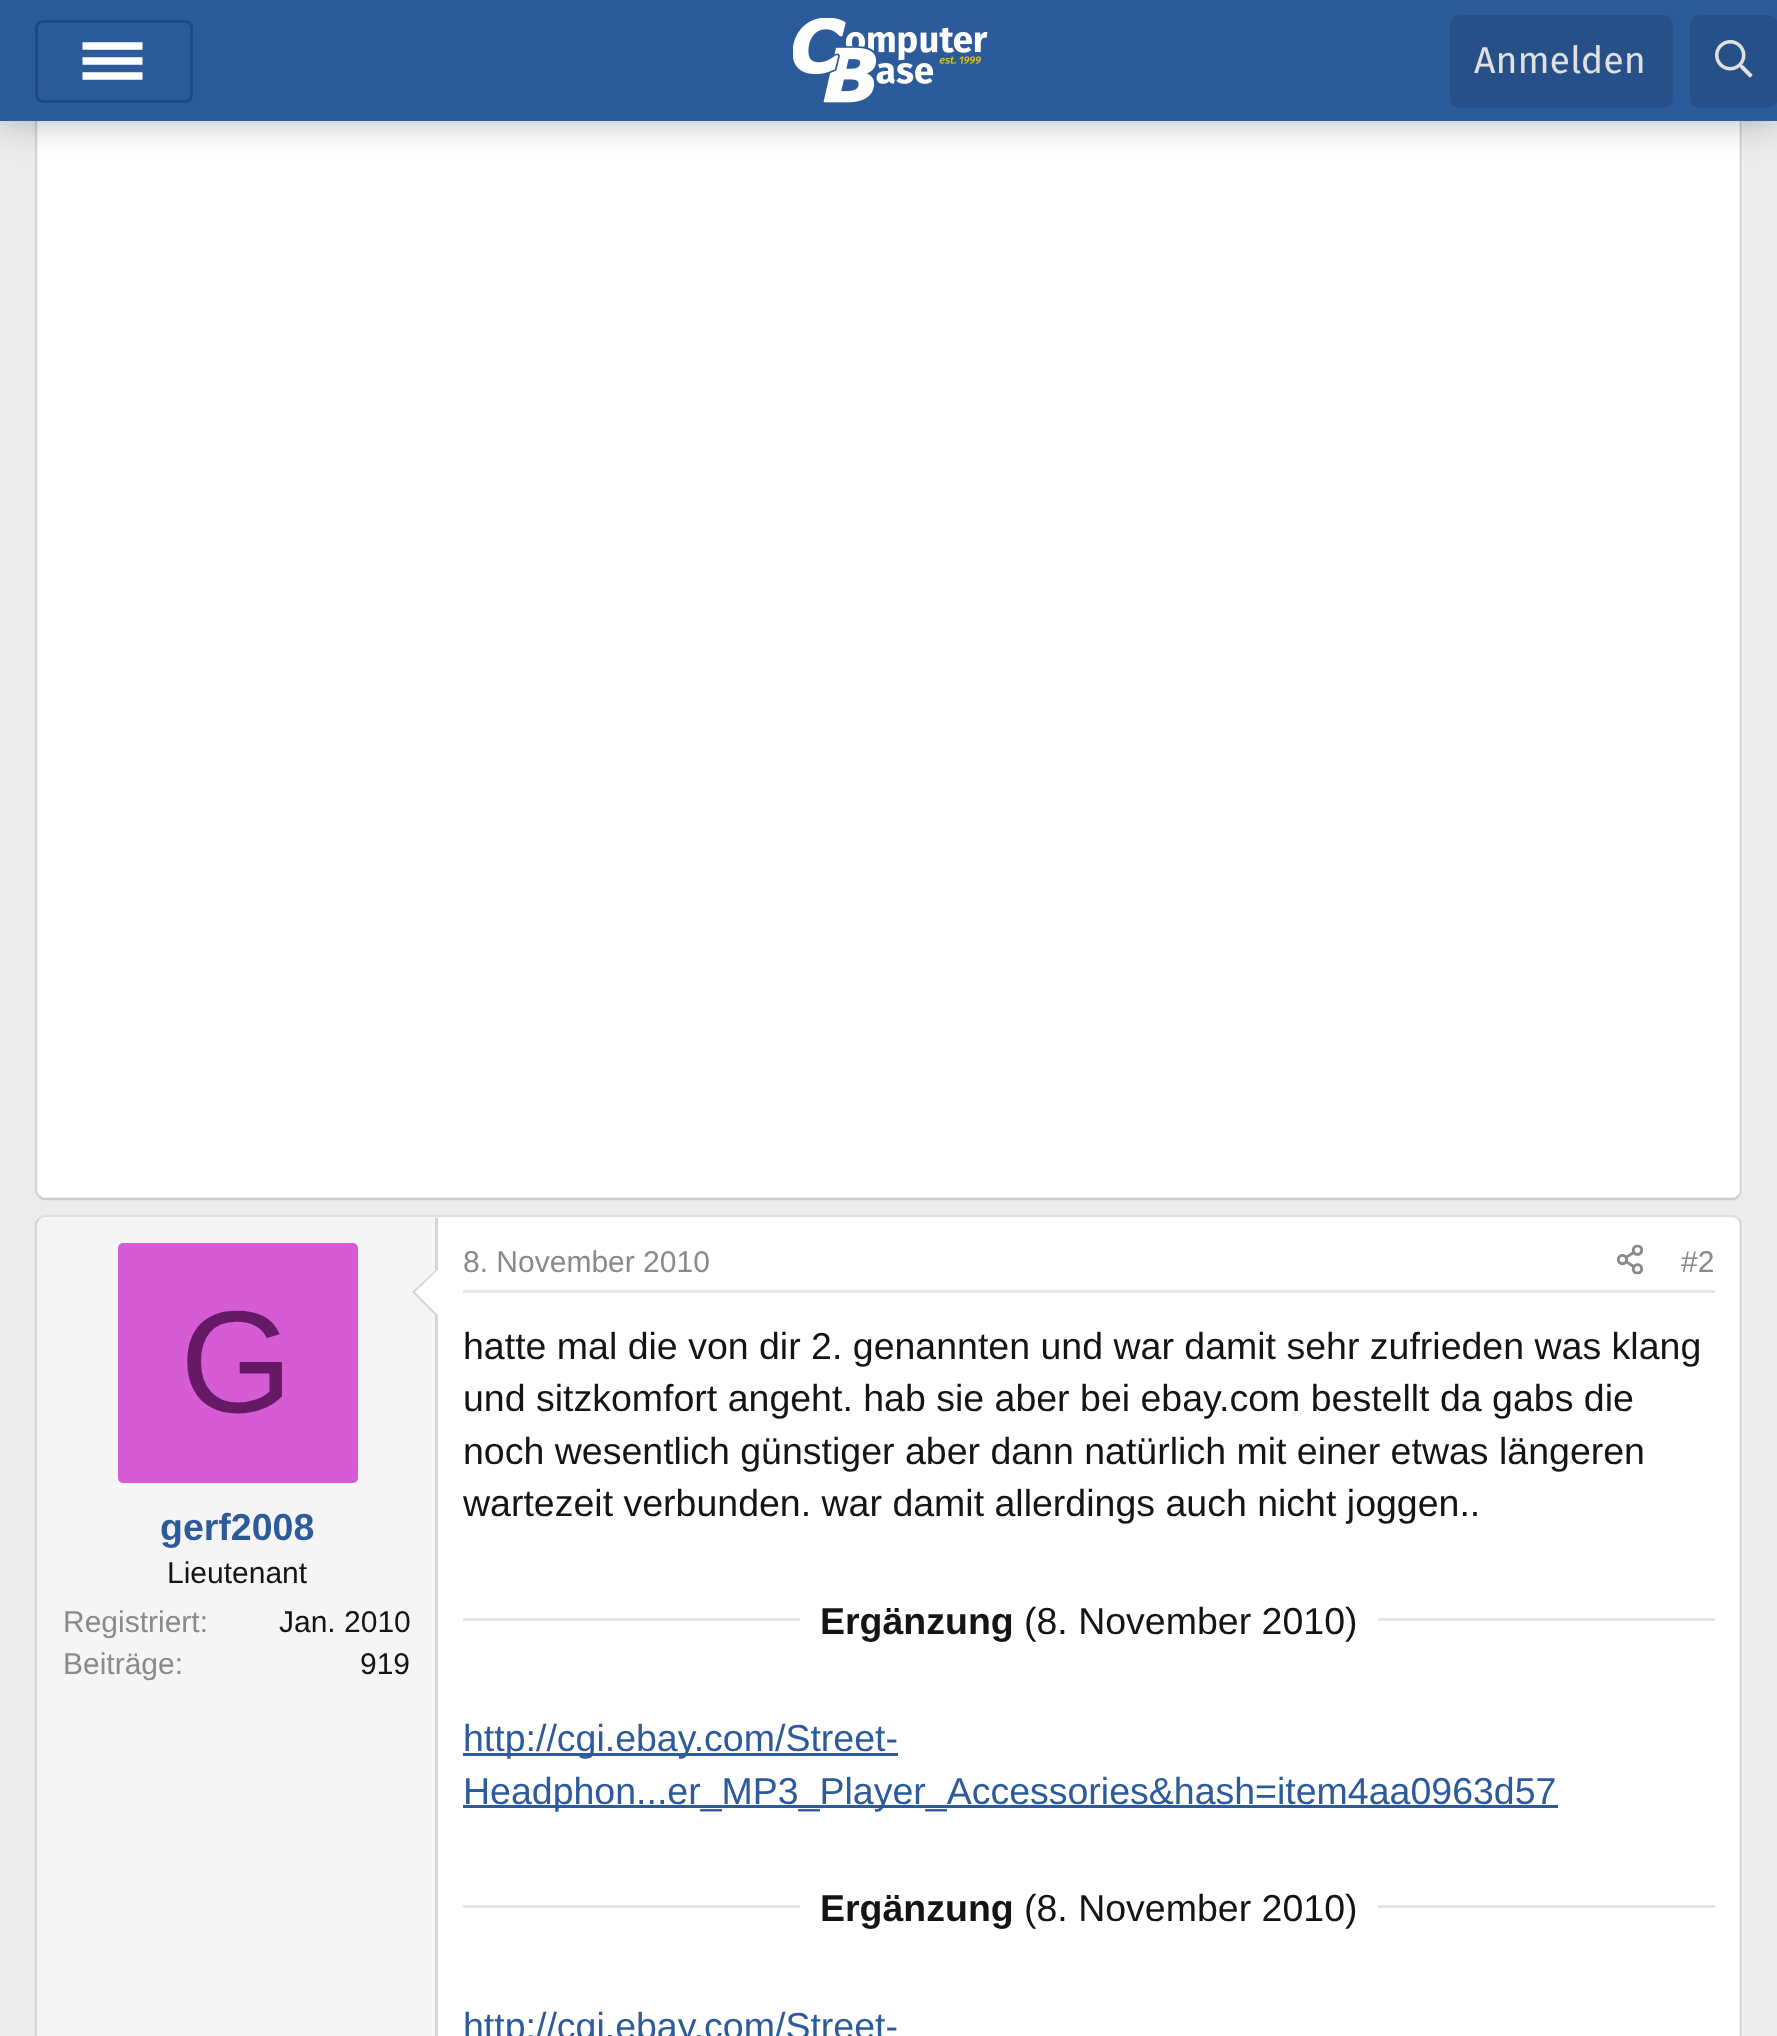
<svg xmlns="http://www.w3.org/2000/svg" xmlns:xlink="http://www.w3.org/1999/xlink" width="1777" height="2036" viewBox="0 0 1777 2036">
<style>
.cls-1{font:37.5px Fira Sans;fill:#e0e0e0}
.cls-2{font:145px Liberation Sans;fill:#661a66}
.cls-3{font:bold 37.5px Liberation Sans;fill:#2c5a9b}
.cls-4{font:30px Liberation Sans;fill:#141414}
.cls-5{font:30px Liberation Sans;fill:#8a8a8a}
.cls-6{font:37.5px Liberation Sans;fill:#141414}
.cls-7{font:bold 37.5px Liberation Sans;fill:#141414}
.cls-8{font:37.5px Liberation Sans;fill:#2c5a9b}
</style>
<rect width="100%" height="100%" fill="#ececec"/>
<rect fill="#ffffff" x="35" y="-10" width="1708" height="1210" rx="10"/>
<path fill="none" stroke="#d6d6d6" stroke-width="2.5" d="M1738.5-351C1740.5-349.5 1741-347.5 1741-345V1190C1741 1192.5 1740.5 1194.5 1738.5 1196"/>
<path fill="none" stroke="#cccccc" stroke-width="2.5" d="M1738.5 1196C1737 1198 1735 1199 1732.5 1199H45C42.5 1199 40.5 1198 39 1196"/>
<path fill="none" stroke="#d6d6d6" stroke-width="2.5" d="M39 1196C37 1194.5 36 1192.5 36 1190V-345C36-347.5 37-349.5 39-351"/>
<rect fill="#000000" fill-opacity="0.3" filter="blur(19px)" x="0" y="0" width="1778" height="120"/>
<rect fill="#2c5b9c" x="0" y="0" width="1777" height="121"/>
<path fill="none" stroke="#ffffff" stroke-width="7.5" d="M82.5 46H142.5M82.5 61H142.5M82.5 76H142.5"/>
<rect fill="none" stroke="#1b4a8b" stroke-width="3" x="36.5" y="21.5" width="155" height="80" rx="6.5"/>
<image xlink:href="image0.png" x="793" y="18" width="195" height="85"/>
<rect fill="#285088" x="1450" y="15" width="223" height="93" rx="10"/>
<rect fill="#285088" x="1690" y="15" width="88" height="93" rx="10"/>
<image xlink:href="image1.png" x="1715" y="40" width="38" height="38"/>
<rect fill="#ffffff" x="35" y="1215" width="1708" height="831" rx="10"/>
<path fill="none" stroke="#e0e0e0" stroke-width="2.5" d="M39 1219C40.5 1217 42.5 1216 45 1216H1732.5C1735 1216 1737 1217 1738.5 1219"/>
<path fill="none" stroke="#d6d6d6" stroke-width="2.5" d="M1738.5 1219C1740.5 1220.5 1741 1222.5 1741 1225V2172.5C1741 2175 1740.5 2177 1738.5 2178.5"/>
<path fill="none" stroke="#d6d6d6" stroke-width="2.5" d="M39 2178.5C37 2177 36 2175 36 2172.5V1225C36 1222.5 37 1220.5 39 1219"/>
<path fill="#f5f5f5" d="M46 1218H438V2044H46C41.5 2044 38 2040.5 38 2036V1226C38 1221.5 41.5 1218 46 1218Z"/>
<rect fill="#d6d6d6" x="435" y="1218" width="3" height="818"/>
<path fill="#d6d6d6" d="M438 1268V1318L412 1292Z"/>
<path fill="#ffffff" d="M438 1270V1315L415 1292Z"/>
<rect fill="#d65cd6" x="118" y="1243" width="240" height="240" rx="5"/>
<rect fill="#e6e6e6" x="463" y="1290" width="1252" height="3"/>
<image xlink:href="image2.png" x="1616" y="1244" width="28" height="31"/>
<rect fill="#e5e5e5" x="463" y="1618" width="1252" height="3"/>
<rect fill="#ffffff" x="800" y="1618" width="578" height="3"/>
<rect fill="#2c5a9b" x="463" y="1753" width="435" height="3"/>
<rect fill="#2c5a9b" x="463" y="1805" width="1095" height="3"/>
<rect fill="#e5e5e5" x="463" y="1905" width="1252" height="3"/>
<rect fill="#ffffff" x="800" y="1905" width="578" height="3"/>
<text class="cls-1" x="1474" y="73">Anmelden</text>
<text class="cls-2" x="180" y="1412">G</text>
<text class="cls-3" x="160" y="1540">gerf2008</text>
<text class="cls-4" x="167" y="1583">Lieutenant</text>
<text class="cls-5" x="63" y="1632">Registriert:</text>
<text class="cls-4" x="279" y="1632">Jan. 2010</text>
<text class="cls-5" x="63" y="1674">Beiträge:</text>
<text class="cls-4" x="360" y="1674">919</text>
<text class="cls-5" x="463" y="1272">8. November 2010</text>
<text class="cls-5" x="1681" y="1272">#2</text>
<text class="cls-6"><tspan x="463" y="1359">hatte mal die von dir 2. genannten und war damit sehr zufrieden was klang</tspan><tspan x="463" y="1411">und sitzkomfort angeht. hab sie aber bei ebay.com bestellt da gabs die</tspan><tspan x="463" y="1464">noch wesentlich günstiger aber dann natürlich mit einer etwas längeren</tspan><tspan x="463" y="1516">wartezeit verbunden. war damit allerdings auch nicht joggen..</tspan></text>
<text class="cls-7" x="820" y="1634">Ergänzung</text>
<text class="cls-6" x="1024" y="1634">(8. November 2010)</text>
<text class="cls-8"><tspan x="463" y="1751">http://cgi.ebay.com/Street-</tspan><tspan x="463" y="1804">Headphon...er_MP3_Player_Accessories&amp;hash=item4aa0963d57</tspan></text>
<text class="cls-7" x="820" y="1921">Ergänzung</text>
<text class="cls-6" x="1024" y="1921">(8. November 2010)</text>
<text class="cls-8" x="463" y="2039">http://cgi.ebay.com/Street-</text>
</svg>
